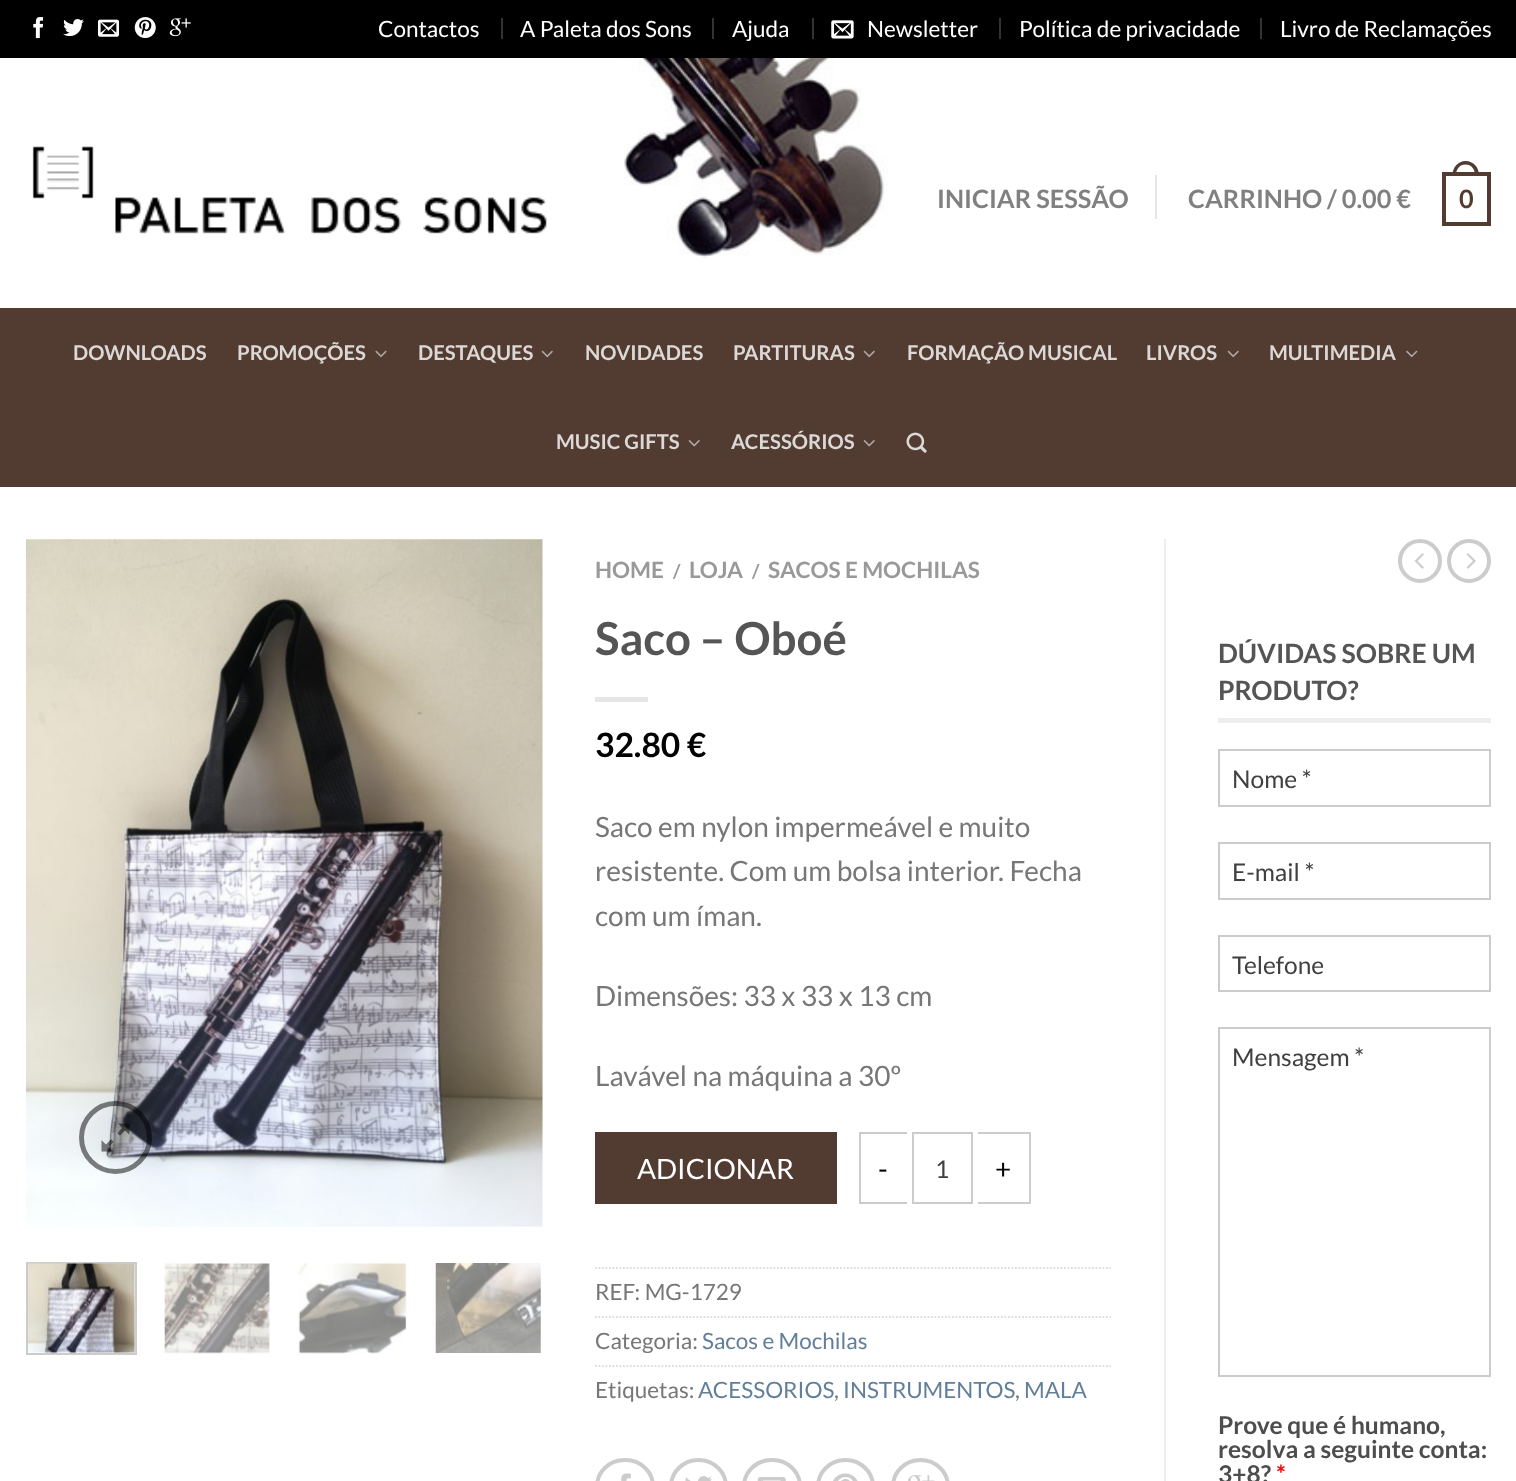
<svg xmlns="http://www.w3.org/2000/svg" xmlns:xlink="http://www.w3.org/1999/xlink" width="1516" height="1481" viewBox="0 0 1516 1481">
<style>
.cls-1{font:22.5px Lato;fill:#ffffff}
.cls-2{font:bold 25.25px Lato;fill:#808080}
.cls-3{font:bold 25.25px Lato;fill:#523c32}
.cls-4{font:bold 20.25px Lato;fill:#dcd8d6}
.cls-5{font:bold 22.5px Lato;fill:#999999}
.cls-6{font:bold 19px Lato;fill:#999999}
.cls-7{font:bold 45.5px Lato;fill:#555555}
.cls-8{font:bold 33.5px Lato;fill:#000000}
.cls-9{font:28px Lato;fill:#777777}
.cls-10{font:28px Lato;fill:#ffffff}
.cls-11{font:28px Lato;fill:#000000}
.cls-12{font:24.5px Lato;fill:#404040}
.cls-13{font:22.5px Lato;fill:#777777}
.cls-14{font:22.5px Lato;fill:#627f9a}
.cls-15{font:bold 26.5px Lato;fill:#555555}
.cls-16{font:bold 24.5px Lato;fill:#4d4d4d}
.cls-17{font:bold 24.5px Lato;fill:#ff0000}
</style>
<rect width="100%" height="100%" fill="#ffffff"/>
<rect fill="#000000" x="0" y="0" width="1516" height="58"/>
<image xlink:href="image0.png" x="33" y="17" width="11" height="22"/>
<image xlink:href="image1.png" x="63" y="19" width="21" height="18"/>
<image xlink:href="image2.png" x="98" y="19" width="21" height="18"/>
<image xlink:href="image3.png" x="134" y="17" width="22" height="22"/>
<image xlink:href="image4.png" x="169" y="18" width="22" height="19"/>
<rect fill="#333333" x="501" y="18" width="2" height="21"/>
<rect fill="#333333" x="712" y="18" width="2" height="21"/>
<rect fill="#333333" x="812" y="18" width="2" height="21"/>
<image xlink:href="image5.png" x="831" y="20" width="23" height="19"/>
<rect fill="#333333" x="999" y="18" width="2" height="21"/>
<rect fill="#333333" x="1260" y="18" width="2" height="21"/>
<image xlink:href="image6.png" x="623" y="58" width="265" height="200"/>
<image xlink:href="image7.png" x="32" y="146" width="515" height="88"/>
<rect fill="#e6e6e6" x="1155" y="175" width="2" height="44"/>
<path fill="#523c32" fill-rule="evenodd" d="M1465.5 161C1473.5 161 1479 167.5 1479 175H1452.5C1452.5 167.5 1458 161 1465.5 161ZM1465.5 164.5C1471.5 164.5 1475 169.5 1475 175H1456C1456 169.5 1459.5 164.5 1465.5 164.5Z"/>
<rect fill="none" stroke="#523c32" stroke-width="4" x="1444" y="174" width="45" height="50"/>
<rect fill="#523c32" x="0" y="308" width="1516" height="179"/>
<image xlink:href="image8.png" x="375" y="350" width="12" height="8"/>
<image xlink:href="image9.png" x="541" y="350" width="12" height="8"/>
<image xlink:href="image9.png" x="863" y="350" width="12" height="8"/>
<image xlink:href="image9.png" x="1227" y="350" width="12" height="8"/>
<image xlink:href="image10.png" x="1406" y="350" width="12" height="8"/>
<image xlink:href="image11.png" x="688" y="440" width="12" height="7"/>
<image xlink:href="image11.png" x="863" y="440" width="12" height="7"/>
<image xlink:href="image12.png" x="906" y="432" width="21" height="21"/>
<image xlink:href="image13.png" x="26" y="539" width="517" height="688"/>
<circle fill="none" stroke="#000000" stroke-opacity="0.5" stroke-width="5" cx="115.5" cy="1137.5" r="34"/>
<image xlink:href="image14.png" x="101" y="1123" width="29" height="29"/>
<rect fill="none" stroke="#cccccc" stroke-width="2" x="27" y="1263" width="109" height="91"/>
<image xlink:href="image15.png" x="28" y="1263" width="107" height="91"/>
<image xlink:href="image16.png" x="164" y="1263" width="106" height="91"/>
<image xlink:href="image17.png" x="298" y="1263" width="109" height="91"/>
<image xlink:href="image18.png" x="435" y="1263" width="106" height="90"/>
<rect fill="#e6e6e6" x="595" y="697" width="53" height="5"/>
<rect fill="#523c32" x="595" y="1132" width="242" height="72"/>
<rect fill="#cccccc" x="859" y="1132" width="48" height="2"/>
<rect fill="#cccccc" x="859" y="1202" width="48" height="2"/>
<rect fill="#cccccc" x="859" y="1132" width="2" height="72"/>
<rect fill="none" stroke="#cccccc" stroke-width="2" x="913" y="1133" width="59" height="70"/>
<rect fill="#cccccc" x="978" y="1132" width="53" height="2"/>
<rect fill="#cccccc" x="1029" y="1132" width="2" height="72"/>
<rect fill="#cccccc" x="978" y="1202" width="53" height="2"/>
<path fill="none" stroke="#dddddd" stroke-width="1.8" stroke-dasharray="1.75 1.75" d="M595 1268H1111"/>
<path fill="none" stroke="#dddddd" stroke-width="1.8" stroke-dasharray="1.75 1.75" d="M595 1317H1111"/>
<path fill="none" stroke="#dddddd" stroke-width="1.8" stroke-dasharray="1.75 1.75" d="M595 1366H1111"/>
<rect fill="none" stroke="#cccccc" stroke-width="4" x="597" y="1460" width="56" height="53" rx="27.5"/>
<image xlink:href="image19.png" x="621" y="1473" width="10" height="8"/>
<rect fill="none" stroke="#cccccc" stroke-width="4" x="671" y="1460" width="55" height="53" rx="27.5"/>
<image xlink:href="image20.png" x="685" y="1476" width="27" height="5"/>
<rect fill="none" stroke="#cccccc" stroke-width="4" x="744" y="1460" width="56" height="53" rx="27.5"/>
<image xlink:href="image21.png" x="757" y="1477" width="29" height="4"/>
<rect fill="none" stroke="#cccccc" stroke-width="4" x="818" y="1460" width="55" height="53" rx="27.5"/>
<image xlink:href="image22.png" x="833" y="1473" width="25" height="8"/>
<rect fill="none" stroke="#cccccc" stroke-width="4" x="893" y="1460" width="55" height="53" rx="27.5"/>
<image xlink:href="image23.png" x="908" y="1475" width="27" height="6"/>
<rect fill="#eeeeee" x="1164" y="539" width="2" height="942"/>
<circle fill="none" stroke="#cccccc" stroke-width="4" cx="1420" cy="561" r="20"/>
<image xlink:href="image24.png" x="1414" y="553" width="10" height="16"/>
<circle fill="none" stroke="#cccccc" stroke-width="4" cx="1469" cy="561" r="20"/>
<image xlink:href="image25.png" x="1466" y="553" width="10" height="16"/>
<rect fill="#eeeeee" x="1218" y="718" width="273" height="5"/>
<rect fill="none" stroke="#cccccc" stroke-width="2" x="1219" y="750" width="271" height="56"/>
<rect fill="none" stroke="#cccccc" stroke-width="2" x="1219" y="843" width="271" height="56"/>
<rect fill="none" stroke="#cccccc" stroke-width="2" x="1219" y="936" width="271" height="55"/>
<rect fill="none" stroke="#cccccc" stroke-width="2" x="1219" y="1028" width="271" height="348"/>
<text class="cls-1" x="378" y="37">Contactos</text>
<text class="cls-1" x="520" y="37">A Paleta dos Sons</text>
<text class="cls-1" x="732" y="37">Ajuda</text>
<text class="cls-1" x="867" y="37">Newsletter</text>
<text class="cls-1" x="1019" y="37">Política de privacidade</text>
<text class="cls-1" x="1280" y="37">Livro de Reclamações</text>
<text class="cls-2" x="937" y="208">INICIAR SESSÃO</text>
<text class="cls-2" x="1188" y="208">CARRINHO / 0.00 €</text>
<text class="cls-3" x="1459" y="208">0</text>
<text class="cls-4" x="73" y="360">DOWNLOADS</text>
<text class="cls-4" x="237" y="360">PROMOÇÕES</text>
<text class="cls-4" x="418" y="360">DESTAQUES</text>
<text class="cls-4" x="585" y="360">NOVIDADES</text>
<text class="cls-4" x="733" y="360">PARTITURAS</text>
<text class="cls-4" x="907" y="360">FORMAÇÃO MUSICAL</text>
<text class="cls-4" x="1146" y="360">LIVROS</text>
<text class="cls-4" x="1269" y="360">MULTIMEDIA</text>
<text class="cls-4" x="556" y="449">MUSIC GIFTS</text>
<text class="cls-4" x="731" y="449">ACESSÓRIOS</text>
<text class="cls-5" x="595" y="578">HOME</text>
<text class="cls-6" x="673" y="578">/</text>
<text class="cls-5" x="689" y="578">LOJA</text>
<text class="cls-6" x="752" y="578">/</text>
<text class="cls-5" x="768" y="578">SACOS E MOCHILAS</text>
<text class="cls-7" x="595" y="655">Saco – Oboé</text>
<text class="cls-8" x="595" y="757">32.80 €</text>
<text class="cls-9"><tspan x="595" y="837">Saco em nylon impermeável e muito</tspan><tspan x="595" y="881">resistente. Com um bolsa interior. Fecha</tspan><tspan x="595" y="926">com um íman.</tspan></text>
<text class="cls-9" x="595" y="1006">Dimensões: 33 x 33 x 13 cm</text>
<text class="cls-9" x="595" y="1086">Lavável na máquina a 30º</text>
<text class="cls-10" x="637" y="1179">ADICIONAR</text>
<text class="cls-11" x="878" y="1179">-</text>
<text class="cls-12" x="935" y="1178">1</text>
<text class="cls-11" x="995" y="1179">+</text>
<text class="cls-13" x="595" y="1300">REF: MG-1729</text>
<text class="cls-13" x="595" y="1349">Categoria:</text>
<text class="cls-14" x="702" y="1349">Sacos e Mochilas</text>
<text class="cls-13" x="595" y="1398">Etiquetas:</text>
<text class="cls-14" x="698" y="1398">ACESSORIOS</text>
<text class="cls-13" x="834" y="1398">,</text>
<text class="cls-14" x="843" y="1398">INSTRUMENTOS</text>
<text class="cls-13" x="1015" y="1398">,</text>
<text class="cls-14" x="1024" y="1398">MALA</text>
<text class="cls-15"><tspan x="1218" y="663">DÚVIDAS SOBRE UM</tspan><tspan x="1218" y="700">PRODUTO?</tspan></text>
<text class="cls-12" x="1232" y="788">Nome *</text>
<text class="cls-12" x="1232" y="881">E-mail *</text>
<text class="cls-12" x="1232" y="974">Telefone</text>
<text class="cls-12" x="1232" y="1066">Mensagem *</text>
<text class="cls-16"><tspan x="1218" y="1434">Prove que é humano,</tspan><tspan x="1218" y="1458">resolva a seguinte conta:</tspan><tspan x="1218" y="1483">3+8?</tspan></text>
<text class="cls-17" x="1276" y="1483">*</text>
</svg>
